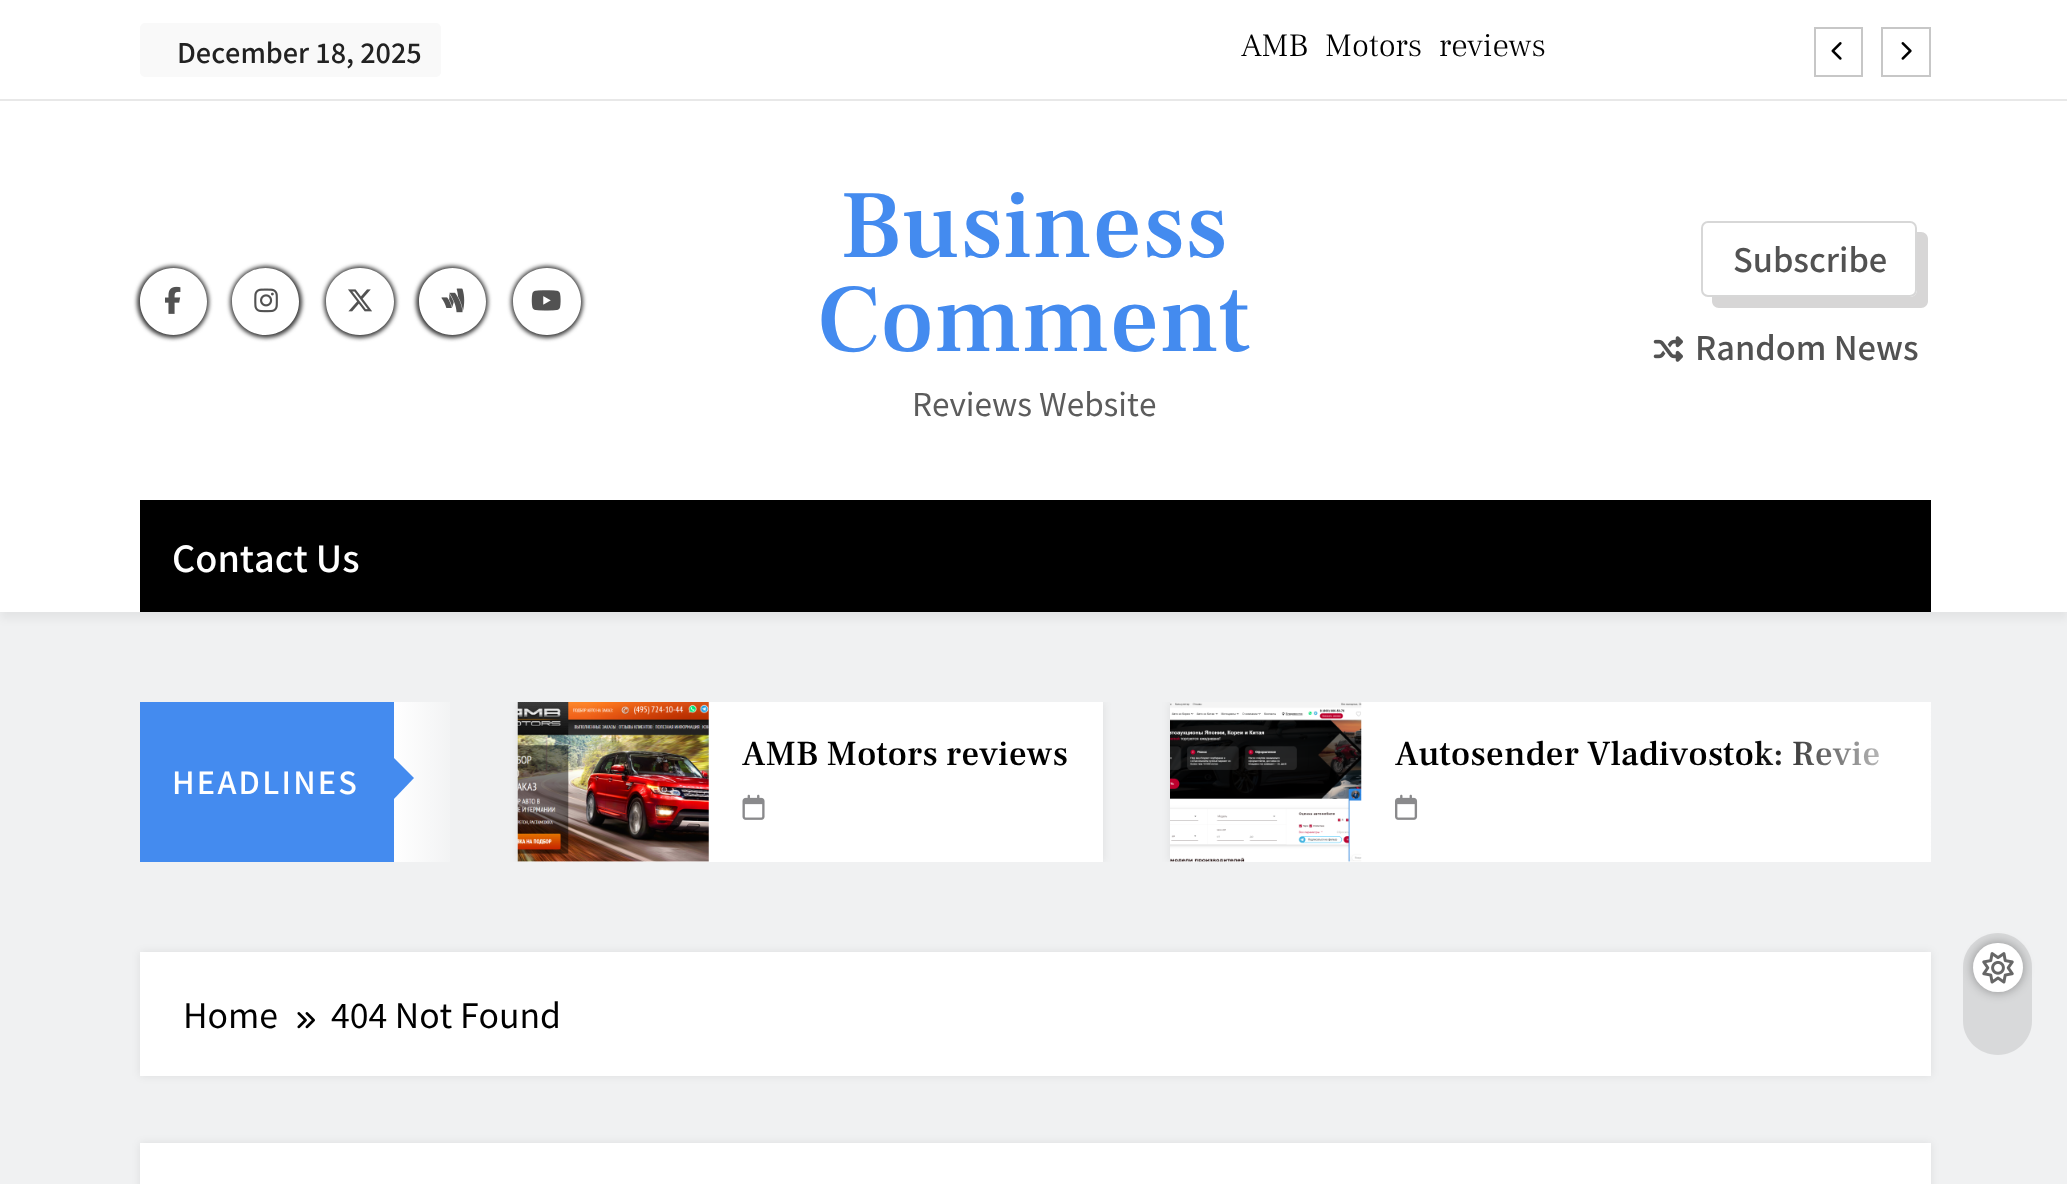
<svg xmlns="http://www.w3.org/2000/svg" xmlns:xlink="http://www.w3.org/1999/xlink" width="2067" height="1184" viewBox="0 0 2067 1184">
<style>*{font-kerning:none!important;font-variant-ligatures:none!important}</style>
<style>
.cls-1{font:500 27px Noto Sans JP;fill:#222222}
.cls-2{font:300 32.75px Frank Ruhl Libre;fill:#000000}
.cls-3{font:500 96.75px Frank Ruhl Libre;fill:#448bef}
.cls-4{font:31.5px Noto Sans JP;fill:#5c5c5c}
.cls-5{font:500 32.5px Noto Sans JP;fill:#525252}
.cls-6{font:500 36px Noto Sans JP;fill:#ffffff}
.cls-7{font:500 35.1px Frank Ruhl Libre;fill:#000000}
.cls-8{font:500 30.5px Noto Sans JP;letter-spacing:2.25px;fill:#ffffff}
.cls-9{font:33.75px Noto Sans JP;fill:#000000}
</style>
<defs>
<clipPath id="clip1"><path d="M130 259H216V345H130ZM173.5 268C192 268 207 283 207 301.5C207 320 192 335 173.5 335C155 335 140 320 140 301.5C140 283 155 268 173.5 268Z" clip-rule="evenodd"/></clipPath>
<clipPath id="clip2"><path d="M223 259H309V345H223ZM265.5 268C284 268 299 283 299 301.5C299 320 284 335 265.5 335C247 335 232 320 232 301.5C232 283 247 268 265.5 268Z" clip-rule="evenodd"/></clipPath>
<clipPath id="clip3"><path d="M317 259H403V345H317ZM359.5 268H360.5C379 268 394 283 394 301.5C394 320 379 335 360.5 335H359.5C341 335 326 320 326 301.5C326 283 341 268 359.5 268Z" clip-rule="evenodd"/></clipPath>
<clipPath id="clip4"><path d="M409 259H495V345H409ZM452.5 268C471 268 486 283 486 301.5C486 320 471 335 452.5 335C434 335 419 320 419 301.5C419 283 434 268 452.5 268Z" clip-rule="evenodd"/></clipPath>
<clipPath id="clip5"><path d="M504 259H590V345H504ZM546.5 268H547.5C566 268 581 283 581 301.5C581 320 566 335 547.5 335H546.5C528 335 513 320 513 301.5C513 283 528 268 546.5 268Z" clip-rule="evenodd"/></clipPath>
<linearGradient id="g1" gradientUnits="userSpaceOnUse" x1="461" y1="782" x2="394" y2="782"><stop offset="0" stop-color="#f0f1f2"/><stop offset="1" stop-color="#ffffff"/></linearGradient>
<clipPath id="clip6"><rect x="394" y="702" width="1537" height="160"/></clipPath>
<linearGradient id="g2" gradientUnits="userSpaceOnUse" x1="1751" y1="782" x2="1931" y2="782"><stop offset="0" stop-color="#ffffff" stop-opacity="0"/><stop offset="1" stop-color="#ffffff"/></linearGradient>
</defs>
<rect width="100%" height="100%" fill="#f0f1f2"/>
<rect fill="#ffffff" x="0" y="0" width="2067" height="99"/>
<rect fill="#e8e8e8" x="0" y="99" width="2067" height="2"/>
<rect fill="#f9f9f9" x="140" y="23" width="301" height="54" rx="5"/>
<rect fill="none" stroke="#c7c7c7" stroke-width="2" x="1815" y="28" width="47" height="48"/>
<image xlink:href="image0.png" x="1831" y="42" width="11" height="18"/>
<rect fill="none" stroke="#c7c7c7" stroke-width="2" x="1882" y="28" width="48" height="48"/>
<image xlink:href="image1.png" x="1901" y="42" width="11" height="18"/>
<rect fill="#000000" fill-opacity="0.05" filter="blur(4.5px)" x="0" y="108" width="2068" height="511"/>
<rect fill="#ffffff" x="0" y="101" width="2067" height="511"/>
<g clip-path="url(#clip1)">
<rect fill="#3a3a3a" filter="blur(2px)" x="137" y="266" width="72" height="72" rx="36"/>
</g>
<image xlink:href="image2.png" x="165" y="286" width="16" height="28"/>
<g clip-path="url(#clip2)">
<rect fill="#3a3a3a" filter="blur(2px)" x="230" y="266" width="72" height="72" rx="36"/>
</g>
<image xlink:href="image3.png" x="254" y="288" width="24" height="25"/>
<g clip-path="url(#clip3)">
<rect fill="#3a3a3a" filter="blur(2px)" x="324" y="266" width="72" height="72" rx="36"/>
</g>
<image xlink:href="image4.png" x="348" y="289" width="24" height="23"/>
<g clip-path="url(#clip4)">
<rect fill="#3a3a3a" filter="blur(2px)" x="416" y="266" width="72" height="72" rx="36"/>
</g>
<image xlink:href="image5.png" x="441" y="288" width="24" height="25"/>
<g clip-path="url(#clip5)">
<rect fill="#3a3a3a" filter="blur(2px)" x="511" y="266" width="72" height="72" rx="36"/>
</g>
<image xlink:href="image6.png" x="531" y="290" width="30" height="21"/>
<path fill="#d7d6d6" d="M1712 297V301C1712 305 1715 308 1719 308H1921C1925 308 1928 305 1928 301V239C1928 235 1925 232 1921 232H1917V290C1917 294 1914 297 1910 297Z"/>
<rect fill="none" stroke="#d7d7d7" stroke-width="2" x="1702" y="222" width="214" height="74" rx="6"/>
<image xlink:href="image7.png" x="1653" y="336" width="30" height="26"/>
<rect fill="#000000" x="140" y="500" width="1791" height="112"/>
<path fill="#d8d9da" d="M2032 967V1021C2032 1040 2016 1055 1998 1055C1979 1055 1963 1040 1963 1021V967C1963 948 1979 933 1998 933C2016 933 2032 948 2032 967Z"/>
<rect fill="#000000" fill-opacity="0.35" filter="blur(5.5px)" x="1973" y="943" width="50" height="49" rx="24.5"/>
<rect fill="#ffffff" x="1973" y="943" width="50" height="49" rx="24.5"/>
<image xlink:href="image8.png" x="1982" y="952" width="32" height="32"/>
<rect fill="url(#g1)" x="394" y="702" width="56" height="160"/>
<g clip-path="url(#clip6)">
<rect fill="#000000" fill-opacity="0.08" filter="blur(4.5px)" x="518" y="702" width="585" height="160"/>
</g>
<rect fill="#ffffff" x="518" y="702" width="585" height="160"/>
<image xlink:href="image9.png" x="517" y="702" width="192" height="160"/>
<image xlink:href="image10.png" x="742" y="794" width="23" height="26"/>
<g clip-path="url(#clip6)">
<rect fill="#000000" fill-opacity="0.08" filter="blur(4.5px)" x="1170" y="702" width="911" height="160"/>
</g>
<rect fill="#ffffff" x="1170" y="702" width="760" height="160"/>
<image xlink:href="image11.png" x="1170" y="702" width="192" height="160"/>
<image xlink:href="image12.png" x="1395" y="794" width="23" height="26"/>
<rect fill="#448bef" x="140" y="702" width="254" height="160"/>
<path fill="#448bef" d="M392 801V756L414 778Z"/>
<rect fill="#000000" fill-opacity="0.08" filter="blur(4.5px)" x="140" y="952" width="1791" height="124"/>
<rect fill="#ffffff" x="140" y="952" width="1791" height="124"/>
<image xlink:href="image13.png" x="297" y="1012" width="18" height="17"/>
<rect fill="#000000" fill-opacity="0.08" filter="blur(4.5px)" x="140" y="1143" width="1791" height="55"/>
<rect fill="#ffffff" x="140" y="1143" width="1791" height="41"/>
<text class="cls-1" x="177" y="63">December 18, 2025</text>
<text class="cls-2" x="1241" y="56" word-spacing="9">AMB Motors reviews</text>
<text class="cls-3" x="840" y="257">Business</text>
<text class="cls-3" x="817" y="351">Comment</text>
<text class="cls-4" x="912" y="416">Reviews Website</text>
<text class="cls-5" x="1733" y="272">Subscribe</text>
<text class="cls-5" x="1695" y="360">Random News</text>
<text class="cls-6" x="172" y="572">Contact Us</text>
<text class="cls-7" x="742" y="765">AMB Motors reviews</text>
<text class="cls-7" x="1395" y="765">Autosender Vladivostok: Revie</text>
<rect fill="url(#g2)" x="1755" y="702" width="176" height="160"/>
<text class="cls-8" x="172" y="794">HEADLINES</text>
<text class="cls-9" x="183" y="1028">Home</text>
<text class="cls-9" x="331" y="1028">404 Not Found</text>
</svg>
